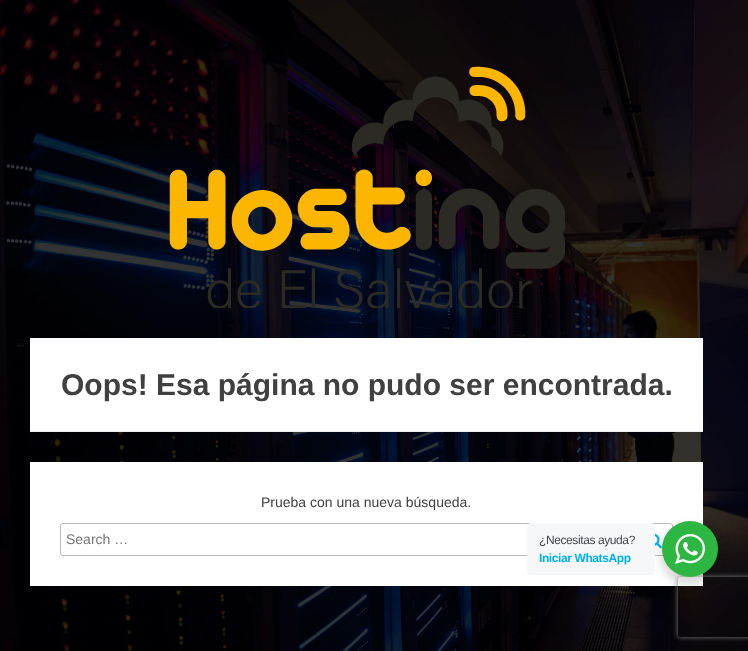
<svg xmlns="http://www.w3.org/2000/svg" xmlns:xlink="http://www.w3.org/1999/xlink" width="748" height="651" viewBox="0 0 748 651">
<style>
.cls-1{font:bold 30px Liberation Sans;fill:#404040}
.cls-2{font:14px Liberation Sans;fill:#404040}
.cls-3{font:14px Liberation Sans;fill:#757575}
.cls-4{font:12px Liberation Sans;letter-spacing:-0.4px;fill:#43474e}
.cls-5{font:bold 12px Liberation Sans;letter-spacing:-0.4px;fill:#00b2f2}
</style>
<defs>
<clipPath id="clip1"><path d="M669 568H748V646H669ZM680 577H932C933 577 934 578 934 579V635C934 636 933 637 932 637H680C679 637 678 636 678 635V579C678 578 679 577 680 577Z" clip-rule="evenodd"/></clipPath>
</defs>
<rect width="100%" height="100%" fill="#ffffff"/>
<image xlink:href="image0.png" x="0" y="0" width="748" height="651"/>
<image xlink:href="image1.png" x="169" y="66" width="396" height="242"/>
<rect fill="#ffffff" x="30" y="338" width="673" height="93"/>
<rect fill="#eeeeee" x="30" y="431" width="673" height="1"/>
<rect fill="#ffffff" x="30" y="462" width="673" height="124"/>
<rect fill="none" stroke="#bbbbbb" x="60.5" y="523.5" width="612" height="32" rx="2.5"/>
<image xlink:href="image2.png" x="655" y="533" width="7" height="16"/>
<rect fill="#000000" fill-opacity="0.14" filter="blur(4px)" x="660" y="525" width="60" height="60" rx="30"/>
<rect fill="#f5f7f9" x="527" y="523" width="128" height="52" rx="4"/>
<g clip-path="url(#clip1)">
<rect fill="#808080" filter="blur(2.5px)" x="678" y="577" width="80" height="60" rx="2"/>
</g>
<circle fill="#2db742" cx="690" cy="549" r="28"/>
<image xlink:href="image3.png" x="675" y="534" width="30" height="30"/>
<text class="cls-1" x="61" y="395">Oops! Esa página no pudo ser encontrada.</text>
<text class="cls-2" x="261" y="507">Prueba con una nueva búsqueda.</text>
<text class="cls-3" x="66" y="544">Search …</text>
<text class="cls-4" x="539" y="544">¿Necesitas ayuda?</text>
<text class="cls-5" x="539" y="562">Iniciar WhatsApp</text>
</svg>
